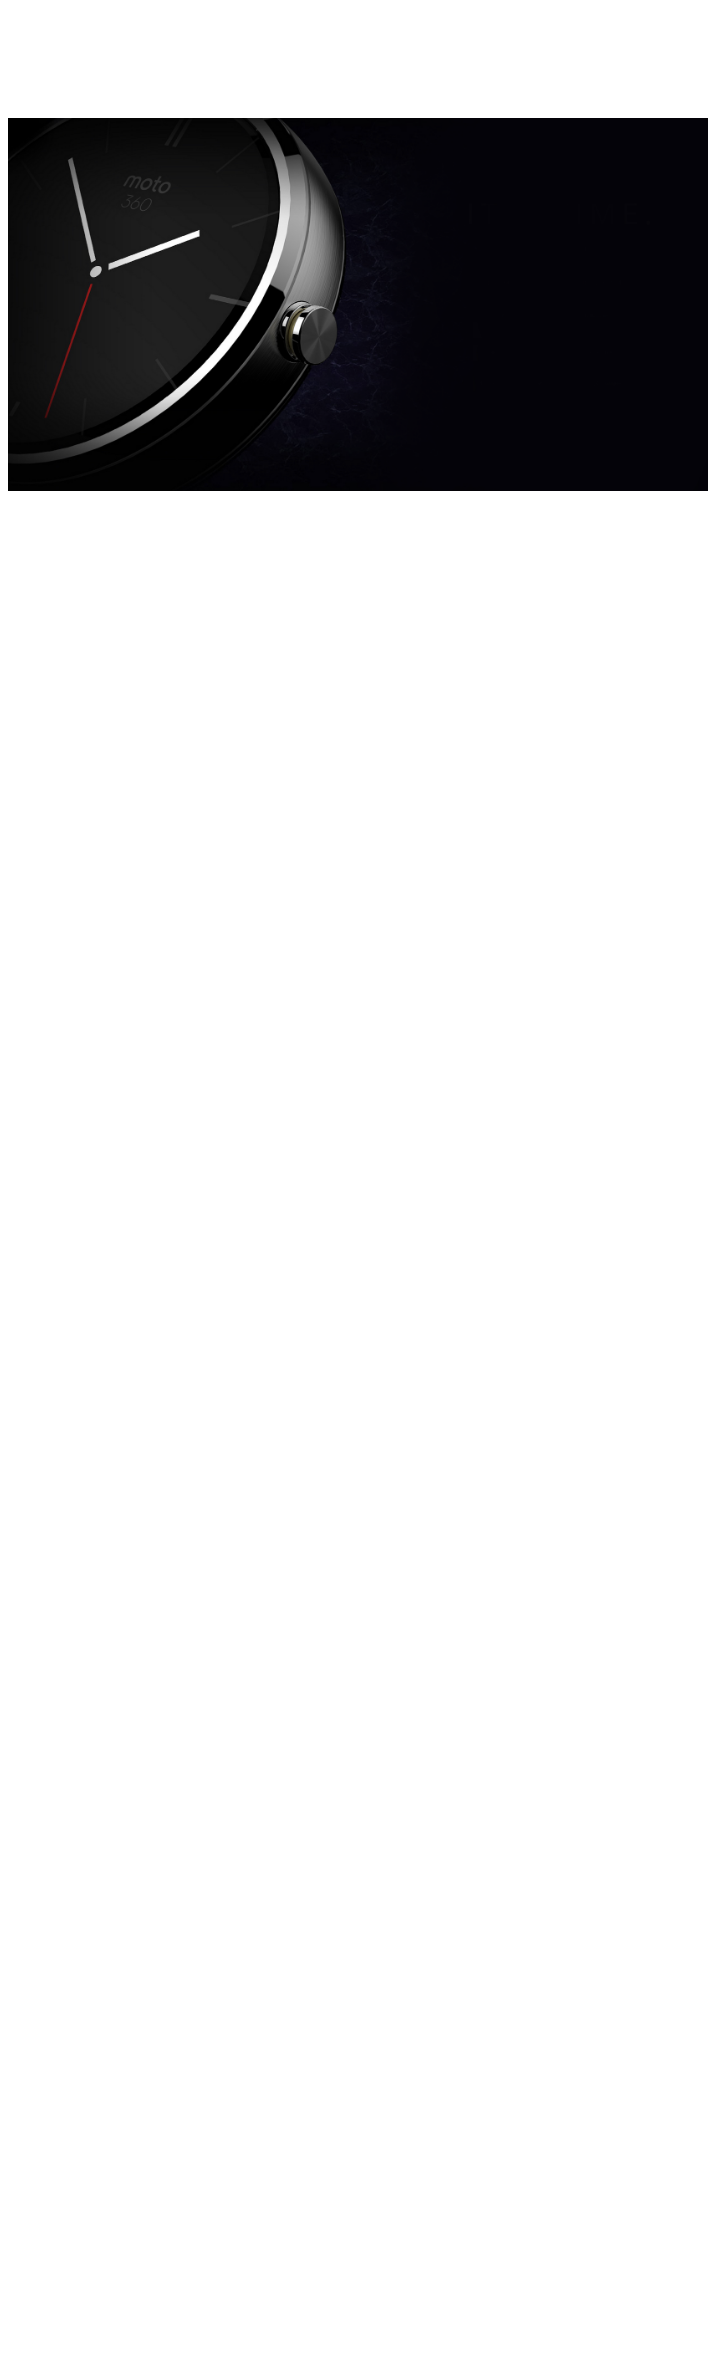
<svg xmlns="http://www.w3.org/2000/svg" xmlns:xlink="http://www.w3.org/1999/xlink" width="716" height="2358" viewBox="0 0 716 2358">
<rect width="100%" height="100%" fill="#ffffff"/>
<image xlink:href="image0.png" x="8" y="118" width="700" height="373"/>
</svg>
